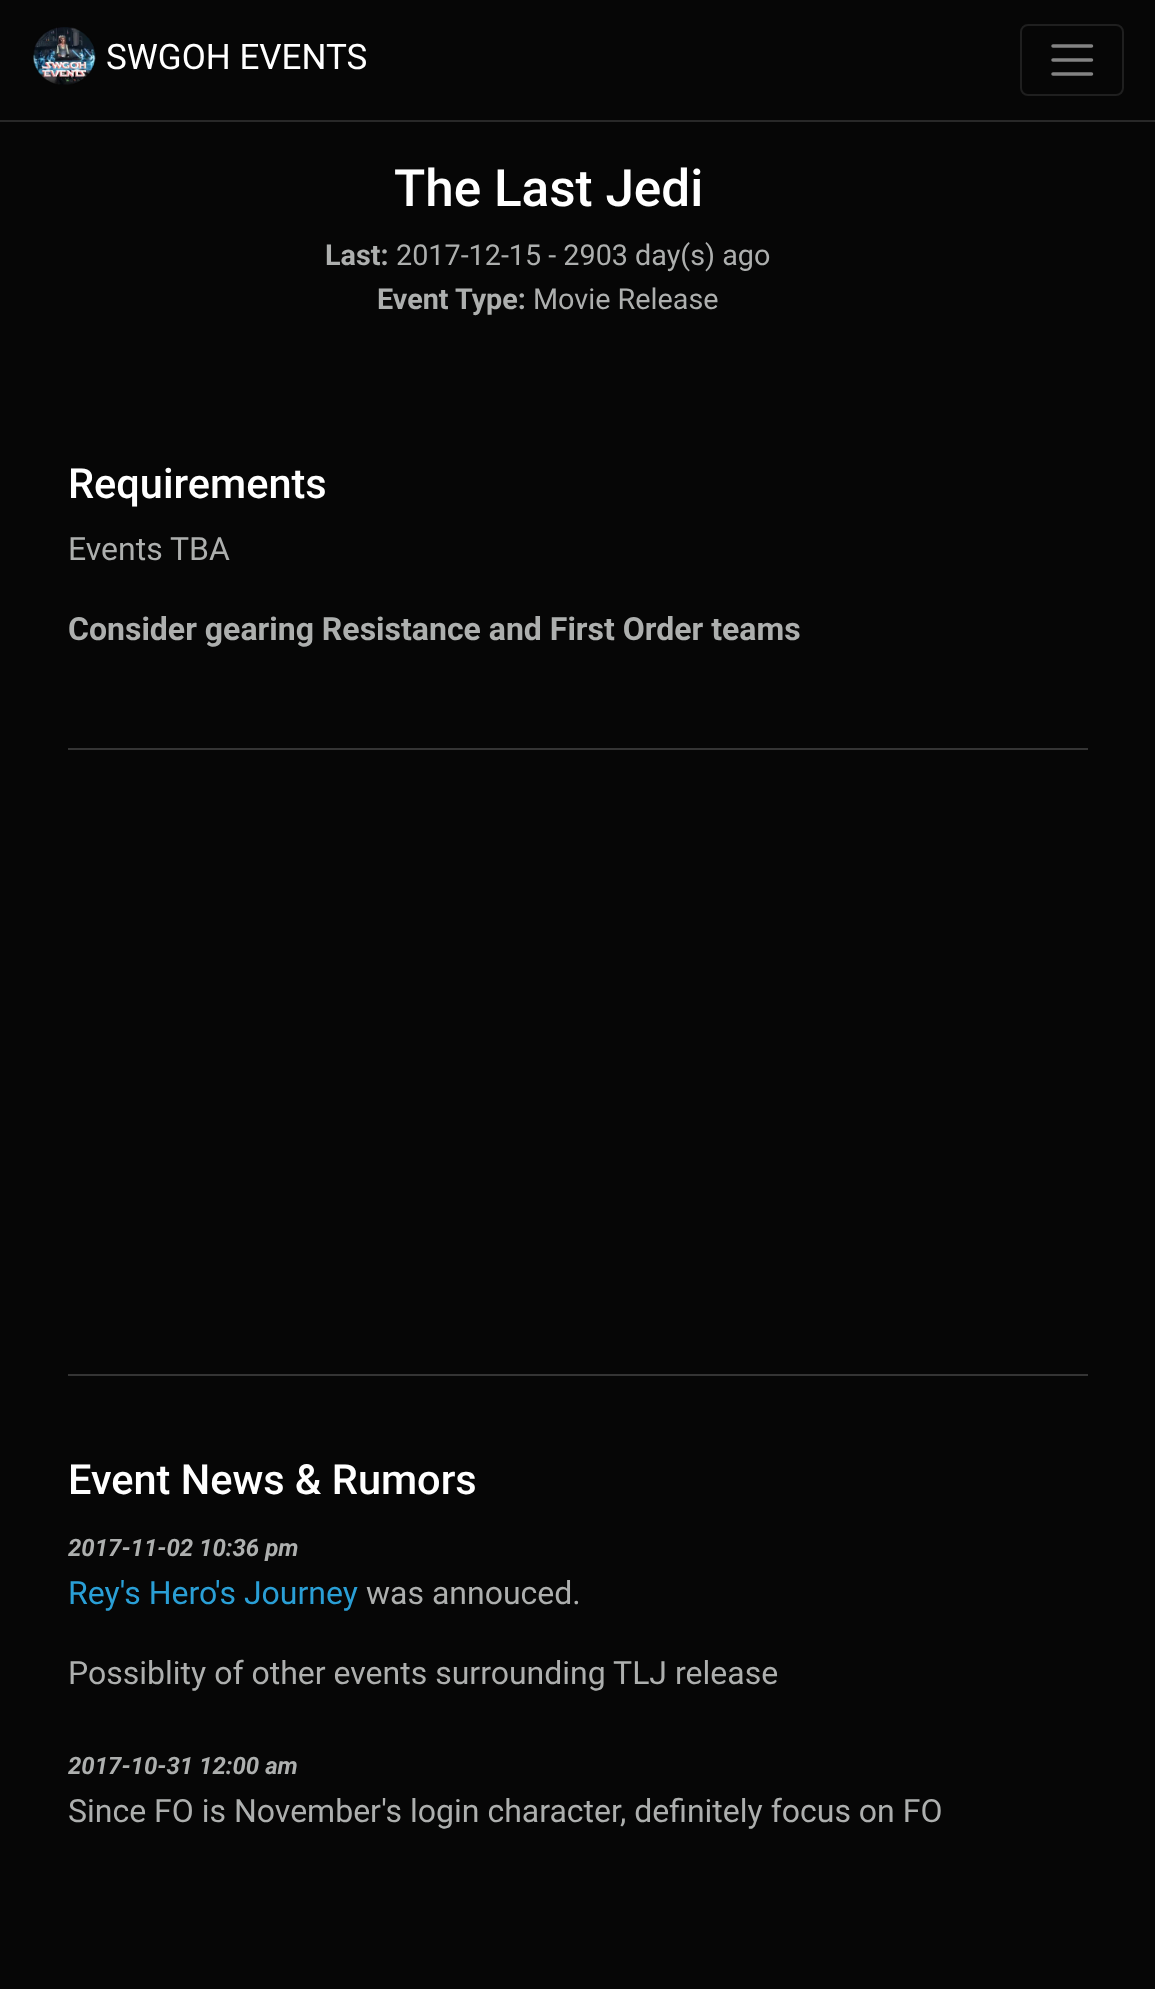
<svg xmlns="http://www.w3.org/2000/svg" xmlns:xlink="http://www.w3.org/1999/xlink" width="1155" height="1989" viewBox="0 0 1155 1989">
<style>
.cls-1{font:35px Roboto;fill:#ffffff}
.cls-2{font:500 51.25px Roboto;fill:#ffffff}
.cls-3{font:bold 28.75px Roboto;fill:#adafae}
.cls-4{font:28.75px Roboto;fill:#adafae}
.cls-5{font:500 41.5px Roboto;fill:#ffffff}
.cls-6{font:32px Roboto;fill:#adafae}
.cls-7{font:bold 32px Roboto;fill:#adafae}
.cls-8{font:italic bold 24px Roboto;fill:#adafae}
.cls-9{font:32px Roboto;fill:#2a9fd6}
</style>
<rect width="100%" height="100%" fill="#060606"/>
<rect fill="#282828" x="0" y="120" width="1155" height="2"/>
<image xlink:href="image0.png" x="33" y="27" width="63" height="58"/>
<rect fill="none" stroke="#1f1f1f" stroke-width="2" x="1021" y="25" width="102" height="70" rx="7"/>
<path fill="none" stroke="#838383" stroke-width="3.5" stroke-linecap="round" d="M1053 46H1091.5M1053 60H1091.5M1053 74H1091.5"/>
<rect fill="#343434" x="68" y="748" width="1020" height="2"/>
<rect fill="#343434" x="68" y="1374" width="1020" height="2"/>
<text class="cls-1" x="106" y="69">SWGOH EVENTS</text>
<text class="cls-2" x="394" y="206">The Last Jedi</text>
<text class="cls-3" x="325" y="265">Last:</text>
<text class="cls-4" x="396" y="265">2017-12-15 - 2903 day(s) ago</text>
<text class="cls-3" x="377" y="309">Event Type:</text>
<text class="cls-4" x="533" y="309">Movie Release</text>
<text class="cls-5" x="68" y="498">Requirements</text>
<text class="cls-6" x="68" y="560">Events TBA</text>
<text class="cls-7" x="68" y="640">Consider gearing Resistance and First Order teams</text>
<text class="cls-5" x="68" y="1494">Event News &amp; Rumors</text>
<text class="cls-8" x="68" y="1556">2017-11-02 10:36 pm</text>
<text class="cls-9" x="68" y="1604">Rey's Hero's Journey</text>
<text class="cls-6" x="366" y="1604">was annouced.</text>
<text class="cls-6" x="68" y="1684">Possiblity of other events surrounding TLJ release</text>
<text class="cls-8" x="68" y="1774">2017-10-31 12:00 am</text>
<text class="cls-6" x="68" y="1822">Since FO is November's login character, definitely focus on FO</text>
</svg>
